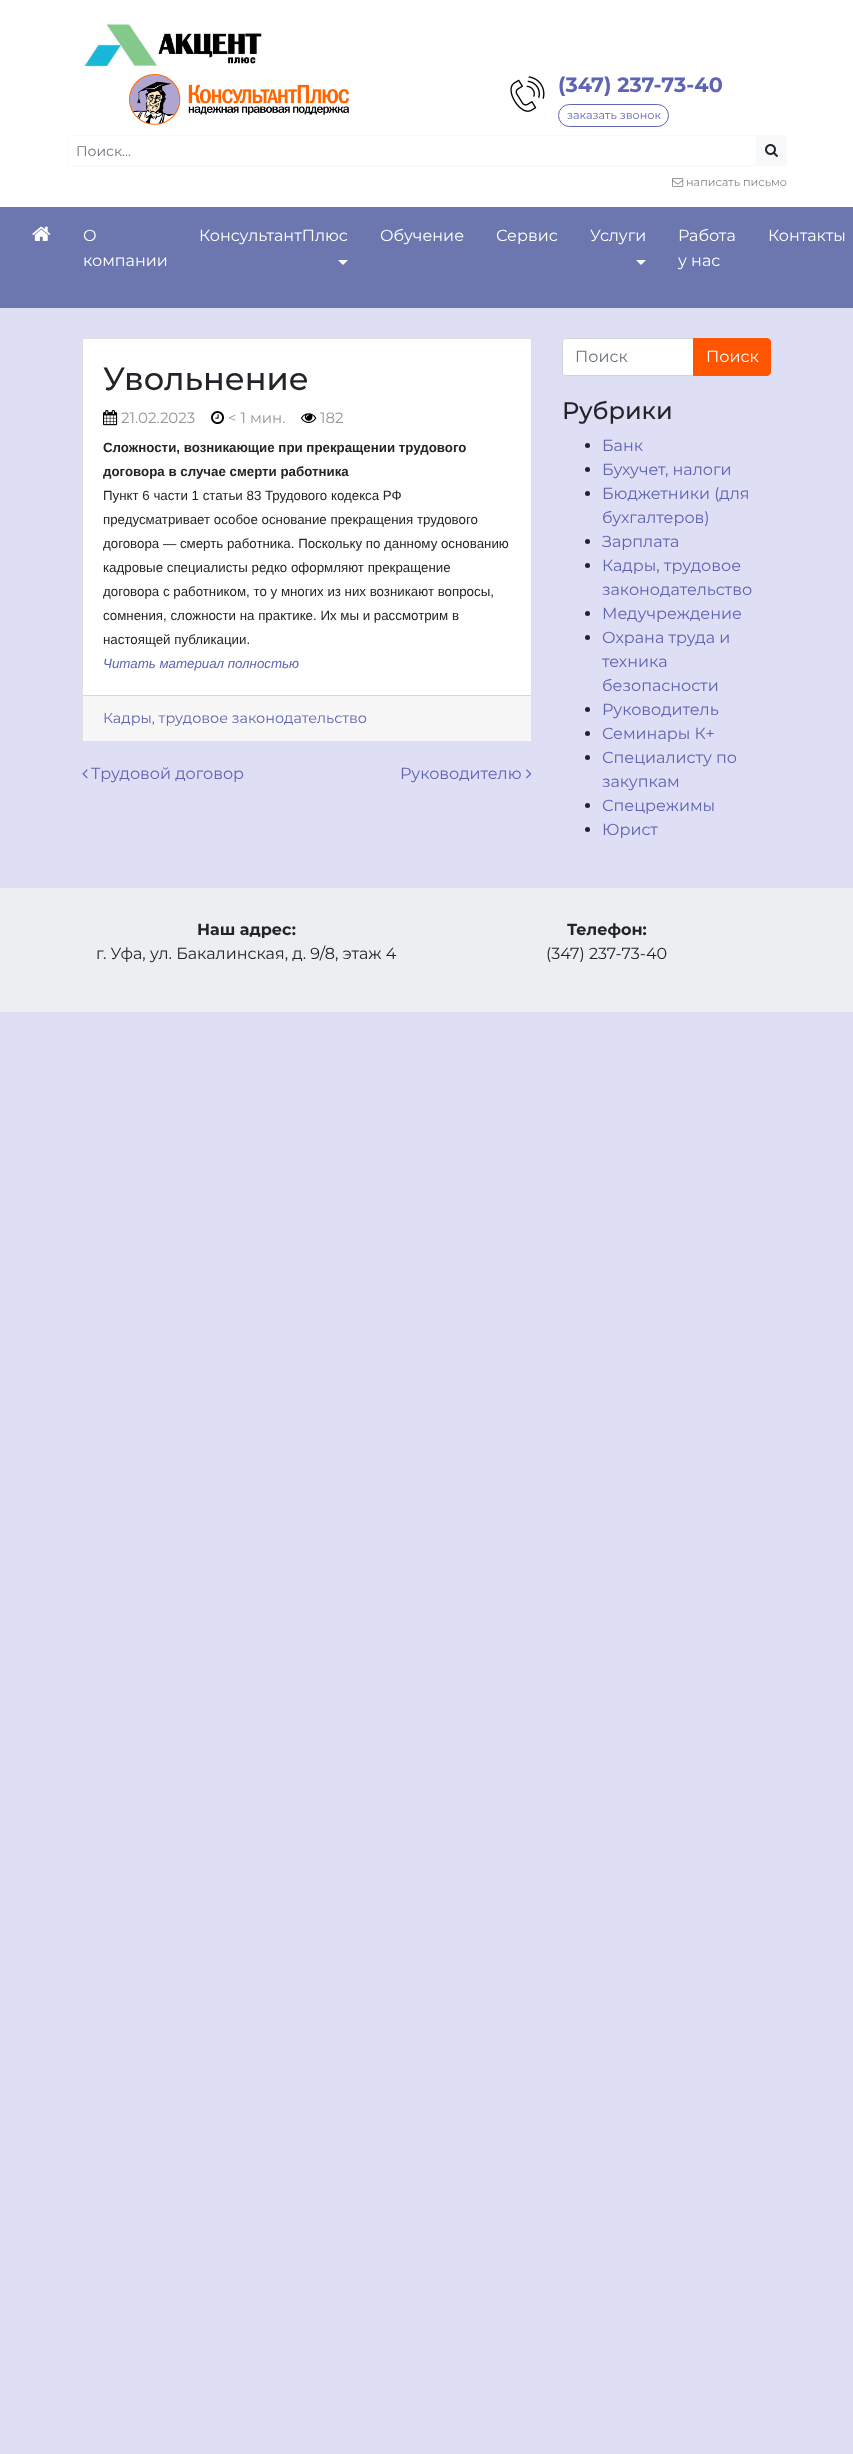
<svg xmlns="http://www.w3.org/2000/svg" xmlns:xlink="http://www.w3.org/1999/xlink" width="853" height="2454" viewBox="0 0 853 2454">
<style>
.cls-1{font:bold 20.75px Montserrat;fill:#5f63b3}
.cls-2{font:11.25px Montserrat;fill:#5f63b3}
.cls-3{font:14px Montserrat;fill:#6c757d}
.cls-4{font:11.25px Montserrat;fill:#838383}
.cls-5{font:16px Montserrat;fill:#ffffff}
.cls-6{font:500 32px Montserrat;fill:#212529}
.cls-7{font:15px Montserrat;fill:#959595}
.cls-8{font:bold 13.3px Liberation Sans;fill:#212529}
.cls-9{font:13.3px Liberation Sans;fill:#212529}
.cls-10{font:italic 13.3px Liberation Sans;fill:#5f63b3}
.cls-11{font:14.4px Montserrat;fill:#5f63b3}
.cls-12{font:16px Montserrat;fill:#5f63b3}
.cls-13{font:16px Montserrat;fill:#6c757d}
.cls-14{font:500 24px Montserrat;fill:#212529}
.cls-15{font:bold 16px Montserrat;fill:#212529}
.cls-16{font:16px Montserrat;fill:#212529}
</style>
<rect width="100%" height="100%" fill="#dedef4"/>
<rect fill="#ffffff" x="0" y="0" width="853" height="207"/>
<image xlink:href="image0.png" x="83" y="21" width="179" height="46"/>
<image xlink:href="image1.png" x="129" y="74" width="220" height="51"/>
<image xlink:href="image2.png" x="510" y="76" width="35" height="36"/>
<rect fill="none" stroke="#5f63b3" x="558.5" y="104.5" width="110" height="22" rx="11"/>
<path fill="none" stroke="#f8f9fa" d="M70 135.5H756.5V165.5H70C68.5 165.5 67.5 164.5 67.5 163V138C67.5 136.5 68.5 135.5 70 135.5Z"/>
<path fill="#f8f9fa" d="M756 135H784C785.5 135 787 136.5 787 138V163C787 164.5 785.5 166 784 166H756Z"/>
<image xlink:href="image3.png" x="765" y="144" width="13" height="13"/>
<image xlink:href="image4.png" x="672" y="178" width="12" height="9"/>
<rect fill="#6d77af" x="0" y="207" width="853" height="101"/>
<image xlink:href="image5.png" x="32" y="226" width="19" height="15"/>
<path fill="#ffffff" d="M338 260H348L343 265Z"/>
<path fill="#ffffff" d="M636 260H646L641 265Z"/>
<rect fill="#ffffff" stroke="#dfdfdf" x="82.5" y="338.5" width="449" height="403"/>
<image xlink:href="image6.png" x="103" y="410" width="15" height="16"/>
<image xlink:href="image7.png" x="211" y="411" width="13" height="14"/>
<image xlink:href="image8.png" x="301" y="413" width="16" height="10"/>
<path fill="#f7f7f7" d="M83 695H531V738C531 739.5 529.5 741 528 741H86C84.5 741 83 739.5 83 738Z"/>
<rect fill="#d8d8d8" x="83" y="695" width="448" height="1"/>
<image xlink:href="image9.png" x="82" y="769" width="6" height="10"/>
<image xlink:href="image10.png" x="526" y="769" width="6" height="10"/>
<path fill="#ffffff" stroke="#ced4da" d="M566 338.5H693.5V375.5H566C564 375.5 562.5 374 562.5 372V342C562.5 340 564 338.5 566 338.5Z"/>
<path fill="#ff5500" stroke="#ff5500" d="M693.5 338.5H767C769 338.5 770.5 340 770.5 342V372C770.5 374 769 375.5 767 375.5H693.5Z"/>
<circle fill="#212529" cx="587.5" cy="445.5" r="2.5"/>
<circle fill="#212529" cx="587.5" cy="469.5" r="2.5"/>
<circle fill="#212529" cx="587.5" cy="493.5" r="2.5"/>
<circle fill="#212529" cx="587.5" cy="541.5" r="2.5"/>
<circle fill="#212529" cx="587.5" cy="565.5" r="2.5"/>
<circle fill="#212529" cx="587.5" cy="613.5" r="2.5"/>
<circle fill="#212529" cx="587.5" cy="637.5" r="2.5"/>
<circle fill="#212529" cx="587.5" cy="709.5" r="2.5"/>
<circle fill="#212529" cx="587.5" cy="733.5" r="2.5"/>
<circle fill="#212529" cx="587.5" cy="757.5" r="2.5"/>
<circle fill="#212529" cx="587.5" cy="805.5" r="2.5"/>
<circle fill="#212529" cx="587.5" cy="829.5" r="2.5"/>
<rect fill="#eceeef" x="0" y="888" width="853" height="124"/>
<text class="cls-1" x="558" y="92">(347) 237-73-40</text>
<text class="cls-2" x="567" y="119">заказать звонок</text>
<text class="cls-3" x="76" y="156">Поиск...</text>
<text class="cls-4" x="686" y="186">написать письмо</text>
<text class="cls-5"><tspan x="83" y="241">О</tspan><tspan x="83" y="266">компании</tspan></text>
<text class="cls-5" x="199" y="241">КонсультантПлюс</text>
<text class="cls-5" x="380" y="241">Обучение</text>
<text class="cls-5" x="496" y="241">Сервис</text>
<text class="cls-5" x="590" y="241">Услуги</text>
<text class="cls-5"><tspan x="678" y="241">Работа</tspan><tspan x="678" y="266">у нас</tspan></text>
<text class="cls-5" x="768" y="241">Контакты</text>
<text class="cls-6" x="103" y="390">Увольнение</text>
<text class="cls-7" x="121" y="423">21.02.2023</text>
<text class="cls-7" x="228" y="423">&lt; 1 мин.</text>
<text class="cls-7" x="320" y="423">182</text>
<text class="cls-8"><tspan x="103" y="452">Сложности, возникающие при прекращении трудового</tspan><tspan x="103" y="476">договора в случае смерти работника</tspan></text>
<text class="cls-9"><tspan x="103" y="500">Пункт 6 части 1 статьи 83 Трудового кодекса РФ</tspan><tspan x="103" y="524">предусматривает особое основание прекращения трудового</tspan><tspan x="103" y="548">договора — смерть работника. Поскольку по данному основанию</tspan><tspan x="103" y="572">кадровые специалисты редко оформляют прекращение</tspan><tspan x="103" y="596">договора с работником, то у многих из них возникают вопросы,</tspan><tspan x="103" y="620">сомнения, сложности на практике. Их мы и рассмотрим в</tspan><tspan x="103" y="644">настоящей публикации.</tspan></text>
<text class="cls-10" x="103" y="668">Читать материал полностью</text>
<text class="cls-11" x="103" y="723">Кадры, трудовое законодательство</text>
<text class="cls-12" x="91" y="779">Трудовой договор</text>
<text class="cls-12" x="400" y="779">Руководителю</text>
<text class="cls-13" x="575" y="362">Поиск</text>
<text class="cls-5" x="706" y="362">Поиск</text>
<text class="cls-14" x="562" y="419">Рубрики</text>
<text class="cls-12"><tspan x="602" y="451">Банк</tspan><tspan x="602" y="475">Бухучет, налоги</tspan><tspan x="602" y="499">Бюджетники (для</tspan><tspan x="602" y="523">бухгалтеров)</tspan><tspan x="602" y="547">Зарплата</tspan><tspan x="602" y="571">Кадры, трудовое</tspan><tspan x="602" y="595">законодательство</tspan><tspan x="602" y="619">Медучреждение</tspan><tspan x="602" y="643">Охрана труда и</tspan><tspan x="602" y="667">техника</tspan><tspan x="602" y="691">безопасности</tspan><tspan x="602" y="715">Руководитель</tspan><tspan x="602" y="739">Семинары К+</tspan><tspan x="602" y="763">Специалисту по</tspan><tspan x="602" y="787">закупкам</tspan><tspan x="602" y="811">Спецрежимы</tspan><tspan x="602" y="835">Юрист</tspan></text>
<text class="cls-15" x="197" y="935">Наш адрес:</text>
<text class="cls-16" x="96" y="959">г. Уфа, ул. Бакалинская, д. 9/8, этаж 4</text>
<text class="cls-15" x="567" y="935">Телефон:</text>
<text class="cls-16" x="546" y="959">(347) 237-73-40</text>
</svg>
